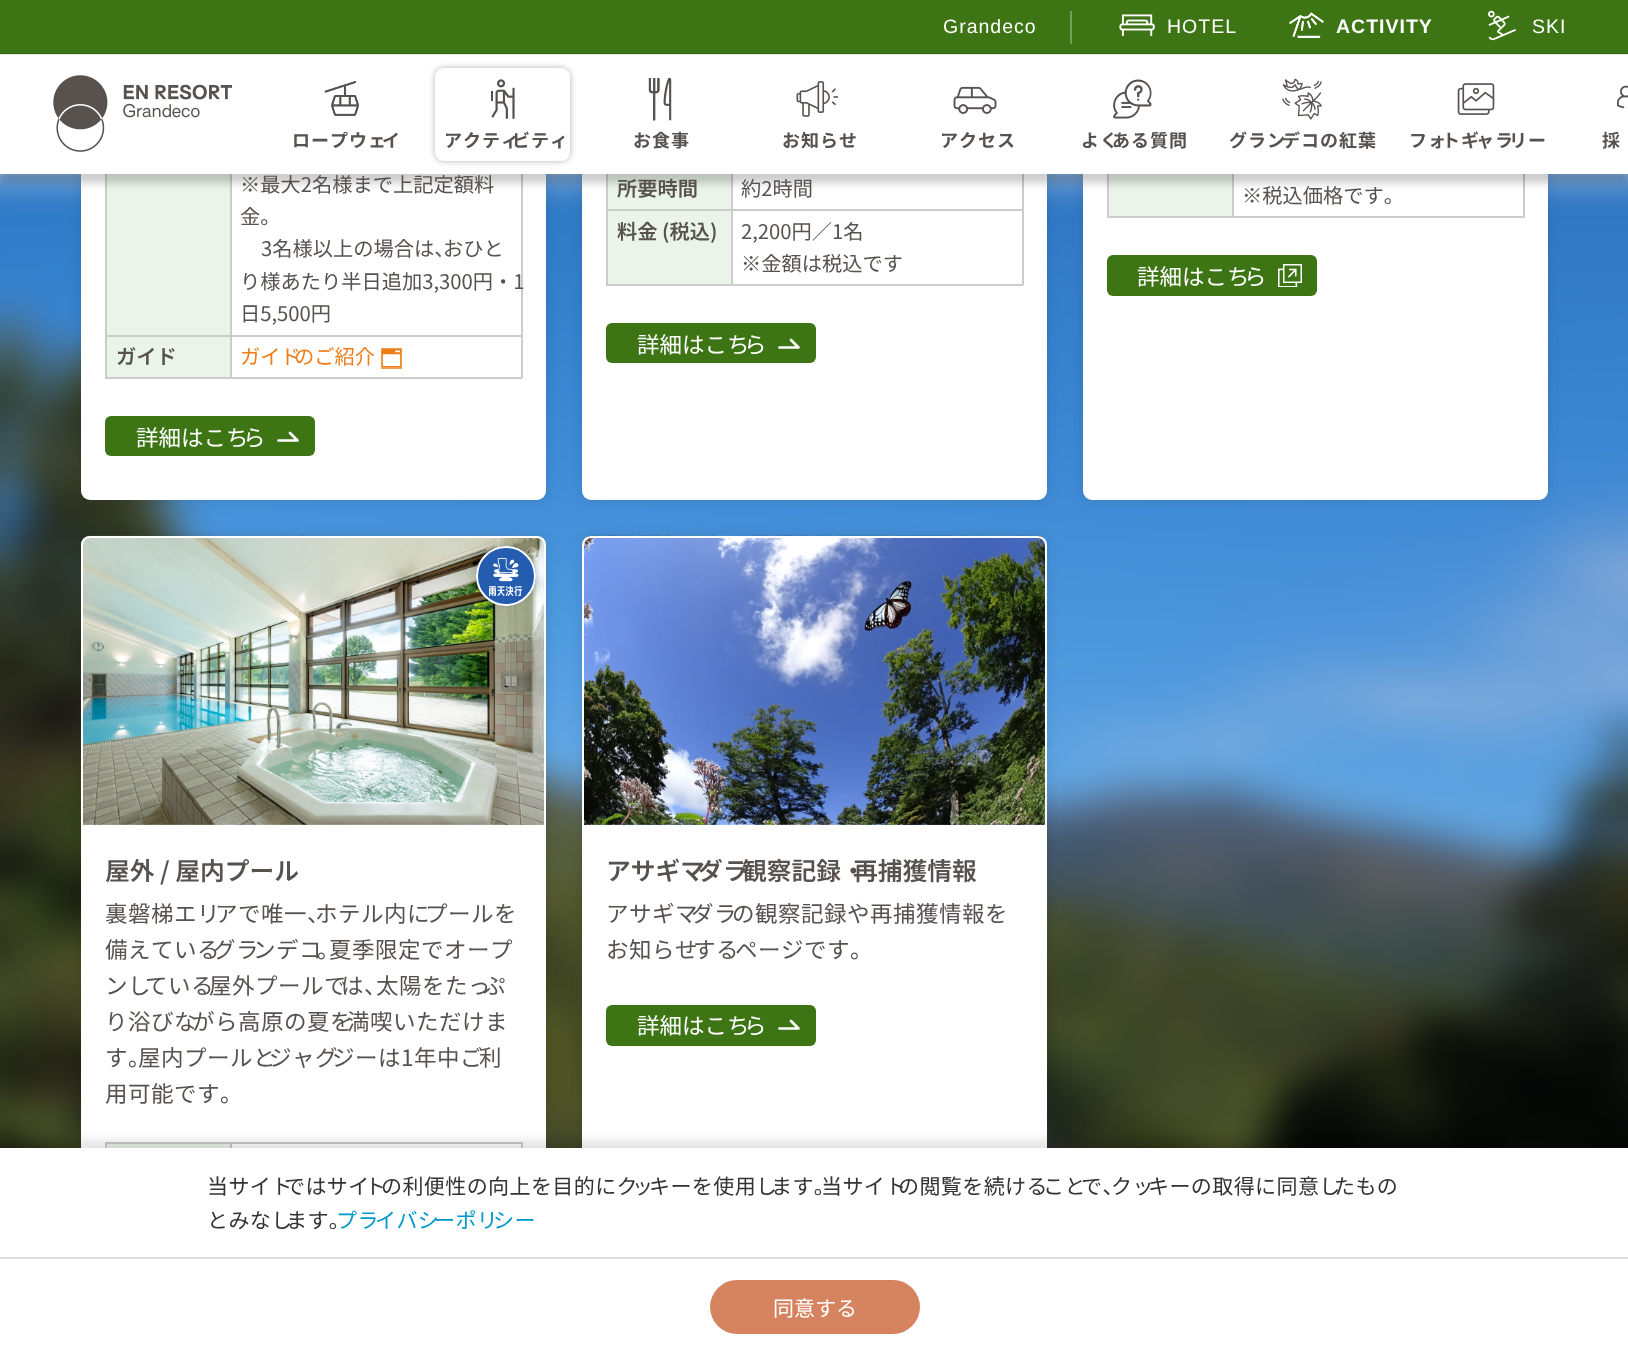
<svg xmlns="http://www.w3.org/2000/svg" xmlns:xlink="http://www.w3.org/1999/xlink" width="1628" height="1354" viewBox="0 0 1628 1354">
<style>*{font-kerning:none!important;font-variant-ligatures:none!important}</style>
<style>
.cls-1{font:19.5px Liberation Sans;letter-spacing:1px;fill:#ffffff}
.cls-2{font:bold 19.5px Liberation Sans;letter-spacing:1px;fill:#ffffff}
.cls-3{font:bold 18px Noto Sans JP;letter-spacing:1px;fill:#57524e}
.cls-4{font:20.25px Noto Sans JP;fill:#57524e}
.cls-5{font:20.25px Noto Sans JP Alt;fill:#57524e}
.cls-6{font:600 20.25px Noto Sans JP;fill:#57524e}
.cls-7{font:20.25px Noto Sans JP;fill:#ee7c17}
.cls-8{font:22.5px Noto Sans JP;fill:#ffffff}
.cls-9{font:600 24.75px Noto Sans JP;fill:#57524e}
.cls-10{font:22.5px Noto Sans JP;letter-spacing:0.5px;fill:#57524e}
.cls-11{font:21px Noto Sans JP;letter-spacing:0.42px;fill:#333333}
.cls-12{font:21px Noto Sans JP;letter-spacing:0.42px;fill:#0099cc}
.cls-13{font:21px Noto Sans JP;fill:#ffffff}
</style>
<defs>
<clipPath id="clip1"><path d="M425 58H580V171H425ZM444 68H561C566 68 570 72 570 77V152C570 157 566 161 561 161H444C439 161 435 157 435 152V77C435 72 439 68 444 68Z" clip-rule="evenodd"/></clipPath>
</defs>
<rect width="100%" height="100%" fill="#ffffff"/>
<image xlink:href="image13.png" x="0" y="174" width="1628" height="974"/>
<rect fill="#000000" fill-opacity="0.1" filter="blur(6px)" x="81" y="-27" width="465" height="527" rx="9"/>
<rect fill="#ffffff" x="81" y="-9" width="465" height="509" rx="9"/>
<rect fill="#cccccc" x="105" y="174" width="2" height="204"/>
<rect fill="#eaf4e8" x="107" y="174" width="123" height="161"/>
<rect fill="#cccccc" x="521" y="174" width="2" height="204"/>
<rect fill="#cccccc" x="230" y="377" width="292" height="2"/>
<rect fill="#cccccc" x="230" y="335" width="2" height="43"/>
<rect fill="#cccccc" x="230" y="335" width="292" height="2"/>
<rect fill="#cccccc" x="230" y="174" width="2" height="162"/>
<rect fill="#000000" fill-opacity="0.1" filter="blur(6px)" x="582" y="-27" width="465" height="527" rx="9"/>
<rect fill="#ffffff" x="582" y="-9" width="465" height="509" rx="9"/>
<rect fill="#cccccc" x="606" y="174" width="2" height="111"/>
<rect fill="#eaf4e8" x="608" y="174" width="123" height="35"/>
<rect fill="#cccccc" x="1022" y="174" width="2" height="111"/>
<rect fill="#cccccc" x="731" y="284" width="292" height="2"/>
<rect fill="#cccccc" x="731" y="209" width="2" height="76"/>
<rect fill="#cccccc" x="731" y="209" width="292" height="2"/>
<rect fill="#cccccc" x="731" y="174" width="2" height="36"/>
<rect fill="#000000" fill-opacity="0.1" filter="blur(6px)" x="1083" y="-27" width="465" height="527" rx="9"/>
<rect fill="#ffffff" x="1083" y="-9" width="465" height="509" rx="9"/>
<rect fill="#cccccc" x="1107" y="174" width="2" height="44"/>
<rect fill="#eaf4e8" x="1109" y="174" width="123" height="42"/>
<rect fill="#cccccc" x="1523" y="174" width="2" height="44"/>
<rect fill="#cccccc" x="1232" y="216" width="292" height="2"/>
<rect fill="#cccccc" x="1232" y="174" width="2" height="44"/>
<rect fill="#000000" fill-opacity="0.2" filter="blur(4px)" x="0" y="63" width="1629" height="120"/>
<rect fill="#3d7515" x="0" y="0" width="1628" height="54"/>
<rect fill="#ffffff" x="0" y="54" width="1628" height="120"/>
<rect fill="#000000" fill-opacity="0.1" x="0" y="53" width="1628" height="2"/>
<rect fill="#779e5b" x="1070" y="11" width="2" height="33"/>
<image xlink:href="image0.png" x="1119" y="14" width="36" height="22"/>
<image xlink:href="image1.png" x="1289" y="12" width="35" height="26"/>
<image xlink:href="image2.png" x="1488" y="10" width="28" height="31"/>
<image xlink:href="image3.png" x="53" y="75" width="180" height="77"/>
<image xlink:href="image4.png" x="324" y="80" width="35" height="36"/>
<g clip-path="url(#clip1)">
<rect fill="#000000" fill-opacity="0.3" filter="blur(3px)" x="435" y="68" width="135" height="93" rx="9"/>
</g>
<image xlink:href="image5.png" x="491" y="79" width="24" height="40"/>
<image xlink:href="image6.png" x="648" y="77" width="24" height="44"/>
<image xlink:href="image7.png" x="796" y="81" width="43" height="36"/>
<image xlink:href="image8.png" x="953" y="86" width="44" height="28"/>
<image xlink:href="image9.png" x="1113" y="79" width="39" height="40"/>
<image xlink:href="image10.png" x="1282" y="78" width="40" height="42"/>
<image xlink:href="image11.png" x="1457" y="83" width="38" height="32"/>
<image xlink:href="image12.png" x="1617" y="85" width="11" height="25"/>
<rect fill="#cccccc" x="105" y="335" width="126" height="2"/>
<rect fill="#eaf4e8" x="107" y="337" width="123" height="40"/>
<rect fill="#cccccc" x="105" y="377" width="126" height="2"/>
<image xlink:href="image14.png" x="381" y="348" width="21" height="21"/>
<rect fill="#3d7515" x="105" y="416" width="210" height="40" rx="6"/>
<path fill="none" stroke="#ffffff" stroke-width="2.7" stroke-linecap="round" stroke-linejoin="round" d="M278.5 440.5H297.5L290 433"/>
<rect fill="#cccccc" x="606" y="209" width="126" height="2"/>
<rect fill="#eaf4e8" x="608" y="211" width="123" height="73"/>
<rect fill="#cccccc" x="606" y="284" width="126" height="2"/>
<rect fill="#3d7515" x="606" y="323" width="210" height="40" rx="6"/>
<path fill="none" stroke="#ffffff" stroke-width="2.7" stroke-linecap="round" stroke-linejoin="round" d="M779.5 347.5H798.5L791 340"/>
<rect fill="#cccccc" x="1107" y="216" width="126" height="2"/>
<rect fill="#3d7515" x="1107" y="255" width="210" height="41" rx="6"/>
<image xlink:href="image15.png" x="1278" y="264" width="24" height="23"/>
<rect fill="#000000" fill-opacity="0.1" filter="blur(6px)" x="81" y="536" width="465" height="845" rx="9"/>
<rect fill="#ffffff" x="81" y="536" width="465" height="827" rx="9"/>
<image xlink:href="image16.png" x="81" y="535" width="465" height="290"/>
<path fill="none" stroke="#ffffff" stroke-width="2" d="M90 537H537C541.5 537 545 540.5 545 545V826H82V545C82 540.5 85.5 537 90 537Z"/>
<rect fill="#000000" fill-opacity="0.1" filter="blur(4.5px)" x="476" y="546" width="60" height="60" rx="30"/>
<circle fill="#245caf" cx="506" cy="576" r="30"/>
<image xlink:href="image17.png" x="489" y="558" width="33" height="38"/>
<circle fill="none" stroke="#ffffff" stroke-width="2" cx="506" cy="576" r="29"/>
<rect fill="#cccccc" x="105" y="1142" width="417" height="2"/>
<rect fill="#cccccc" x="105" y="1142" width="2" height="6"/>
<rect fill="#eaf4e8" x="107" y="1144" width="123" height="4"/>
<rect fill="#cccccc" x="230" y="1142" width="2" height="6"/>
<rect fill="#cccccc" x="521" y="1142" width="2" height="6"/>
<rect fill="#000000" fill-opacity="0.1" filter="blur(6px)" x="582" y="536" width="465" height="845" rx="9"/>
<rect fill="#ffffff" x="582" y="536" width="465" height="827" rx="9"/>
<image xlink:href="image18.png" x="582" y="535" width="465" height="290"/>
<path fill="none" stroke="#ffffff" stroke-width="2" d="M591 537H1038C1042.5 537 1046 540.5 1046 545V826H583V545C583 540.5 586.5 537 591 537Z"/>
<rect fill="#3d7515" x="606" y="1005" width="210" height="41" rx="6"/>
<path fill="none" stroke="#ffffff" stroke-width="2.7" stroke-linecap="round" stroke-linejoin="round" d="M779.5 1028.5H798.5L791 1021"/>
<rect fill="#000000" fill-opacity="0.1" filter="blur(4px)" x="0" y="1140" width="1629" height="207"/>
<rect fill="#ffffff" x="0" y="1148" width="1628" height="206"/>
<rect fill="#dddddd" x="0" y="1257" width="1628" height="2"/>
<rect fill="#d6845f" x="710" y="1280" width="210" height="54" rx="27"/>
<text class="cls-1" x="943" y="33">Grandeco</text>
<text class="cls-1" x="1167" y="33">HOTEL</text>
<text class="cls-2" x="1336" y="33">ACTIVITY</text>
<text class="cls-1" x="1532" y="33">SKI</text>
<text class="cls-3" x="292" y="147">ロープウェ</text>
<text class="cls-3" x="382" y="147">イ</text>
<text class="cls-3" x="444" y="147">アクティ</text>
<text class="cls-3" x="512" y="147">ビティ</text>
<text class="cls-3" x="633" y="147">お食事</text>
<text class="cls-3" x="782" y="147">お知らせ</text>
<text class="cls-3" x="940" y="147">アクセス</text>
<text class="cls-3" x="1081" y="147">よく</text>
<text class="cls-3" x="1112" y="147">ある質問</text>
<text class="cls-3" x="1229" y="147">グラン</text>
<text class="cls-3" x="1282" y="147">デコの紅葉</text>
<text class="cls-3" x="1409" y="147">フォ</text>
<text class="cls-3" x="1442" y="147">トギ</text>
<text class="cls-3" x="1476" y="147">ャラ</text>
<text class="cls-3" x="1509" y="147">リー</text>
<text class="cls-3" x="1602" y="147">採</text>
<text class="cls-4"><tspan x="240" y="192">※最大2名様まで上記定額料</tspan><tspan x="240" y="224">金。</tspan></text>
<text class="cls-4" x="261" y="256">3名様以上の場合は、</text>
<text class="cls-4" x="443" y="256">おひと</text>
<text class="cls-5" x="240" y="289">り様あたり半日追加3,300円・1</text>
<text class="cls-4" x="240" y="321">日5,500円</text>
<text class="cls-6" x="116" y="364">ガイド</text>
<text class="cls-7" x="240" y="364">ガイド</text>
<text class="cls-7" x="294" y="364">のご紹介</text>
<text class="cls-8" x="136" y="446">詳細はこち</text>
<text class="cls-8" x="243" y="446">ら</text>
<text class="cls-6" x="617" y="196">所要時間</text>
<text class="cls-4" x="741" y="196">約2時間</text>
<text class="cls-6" x="617" y="239">料金 (税込)</text>
<text class="cls-4"><tspan x="741" y="239">2,200円／1名</tspan><tspan x="741" y="271">※金額は税込です</tspan></text>
<text class="cls-8" x="637" y="353">詳細はこち</text>
<text class="cls-8" x="744" y="353">ら</text>
<text class="cls-4" x="1242" y="203">※税込価格です。</text>
<text class="cls-8" x="1137" y="285">詳細はこち</text>
<text class="cls-8" x="1244" y="285">ら</text>
<text class="cls-9" x="105" y="880">屋外 / 屋内プール</text>
<text class="cls-10" x="105" y="922">裏磐梯エリ</text>
<text class="cls-10" x="215" y="922">アで唯一、</text>
<text class="cls-10" x="315" y="922">ホテル内に</text>
<text class="cls-10" x="425" y="922">プールを</text>
<text class="cls-10" x="105" y="958">備えている</text>
<text class="cls-10" x="213" y="958">グラ</text>
<text class="cls-10" x="253" y="958">ンデコ</text>
<text class="cls-10" x="317" y="958">。</text>
<text class="cls-10" x="329" y="958">夏季限定でオープ</text>
<text class="cls-10" x="105" y="994">ンし</text>
<text class="cls-10" x="145" y="994">ている</text>
<text class="cls-10" x="209" y="994">屋外プールで</text>
<text class="cls-10" x="341" y="994">は、</text>
<text class="cls-10" x="376" y="994">太陽をたっ</text>
<text class="cls-10" x="483" y="994">ぷ</text>
<text class="cls-10" x="105" y="1030">り浴びな</text>
<text class="cls-10" x="192" y="1030">がら高原の夏を</text>
<text class="cls-10" x="347" y="1030">満喫いただけま</text>
<text class="cls-10" x="105" y="1066">す。</text>
<text class="cls-10" x="138" y="1066">屋内プールと</text>
<text class="cls-10" x="269" y="1066">ジャグ</text>
<text class="cls-10" x="332" y="1066">ジーは1年中ご</text>
<text class="cls-10" x="479" y="1066">利</text>
<text class="cls-10" x="105" y="1102">用可能です。</text>
<text class="cls-9" x="606" y="880">アサギマ</text>
<text class="cls-9" x="698" y="880">ダラ</text>
<text class="cls-9" x="742" y="880">観察記録・</text>
<text class="cls-9" x="853" y="880">再捕獲情報</text>
<text class="cls-10" x="606" y="922">アサギマ</text>
<text class="cls-10" x="691" y="922">ダラ</text>
<text class="cls-10" x="732" y="922">の観察記録や再捕獲情報を</text>
<text class="cls-10" x="606" y="958">お知らせ</text>
<text class="cls-10" x="693" y="958">する</text>
<text class="cls-10" x="735" y="958">ページです。</text>
<text class="cls-8" x="637" y="1034">詳細はこち</text>
<text class="cls-8" x="744" y="1034">ら</text>
<text class="cls-11" x="207" y="1194">当サイト</text>
<text class="cls-11" x="284" y="1194">ではサイ</text>
<text class="cls-11" x="365" y="1194">ト</text>
<text class="cls-11" x="381" y="1194">の利便性の向上を目的にク</text>
<text class="cls-11" x="632" y="1194">ッ</text>
<text class="cls-11" x="649" y="1194">キーを使用し</text>
<text class="cls-11" x="771" y="1194">ます。</text>
<text class="cls-11" x="821" y="1194">当サイト</text>
<text class="cls-11" x="898" y="1194">の閲覧を続ける</text>
<text class="cls-11" x="1043" y="1194">こと</text>
<text class="cls-11" x="1081" y="1194">で、</text>
<text class="cls-11" x="1111" y="1194">クッ</text>
<text class="cls-11" x="1148" y="1194">キーの取得に同意し</text>
<text class="cls-11" x="1334" y="1194">たもの</text>
<text class="cls-11" x="207" y="1228">とみなし</text>
<text class="cls-11" x="286" y="1228">ます。</text>
<text class="cls-12" x="336" y="1228">プラ</text>
<text class="cls-12" x="375" y="1228">イバシ</text>
<text class="cls-12" x="434" y="1228">ーポリ</text>
<text class="cls-12" x="493" y="1228">シー</text>
<text class="cls-13" x="773" y="1316">同意する</text>
</svg>
